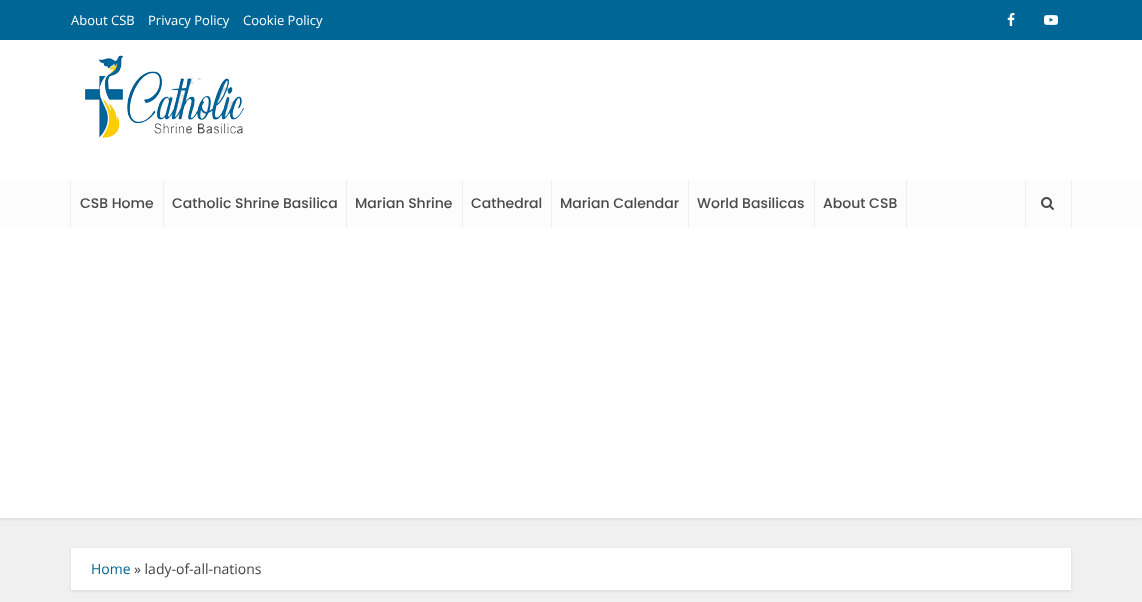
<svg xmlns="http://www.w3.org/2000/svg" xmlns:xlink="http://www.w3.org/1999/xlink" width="1142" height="602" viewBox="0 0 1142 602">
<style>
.cls-1{font:13px Open Sans;fill:#ffffff}
.cls-2{font:500 14px Poppins;fill:#4a4a4a}
.cls-3{font:14px Open Sans;fill:#006696}
.cls-4{font:14px Open Sans;fill:#444444}
</style>
<rect width="100%" height="100%" fill="#f0f0f0"/>
<rect fill="#000000" fill-opacity="0.1" filter="blur(1.5px)" x="0" y="1" width="1142" height="518"/>
<rect fill="#ffffff" x="0" y="40" width="1142" height="478"/>
<rect fill="#006696" x="0" y="0" width="1142" height="40"/>
<image xlink:href="image0.png" x="1007" y="13" width="8" height="13"/>
<image xlink:href="image1.png" x="1044" y="15" width="14" height="10"/>
<image xlink:href="image2.png" x="85" y="55" width="159" height="83"/>
<rect fill="#fcfcfc" x="0" y="180" width="1142" height="48"/>
<rect fill="#efefef" x="163" y="180" width="1" height="48"/>
<rect fill="#efefef" x="70" y="180" width="1" height="48"/>
<rect fill="#efefef" x="346" y="180" width="1" height="48"/>
<rect fill="#efefef" x="462" y="180" width="1" height="48"/>
<rect fill="#efefef" x="551" y="180" width="1" height="48"/>
<rect fill="#efefef" x="688" y="180" width="1" height="48"/>
<rect fill="#efefef" x="814" y="180" width="1" height="48"/>
<rect fill="#efefef" x="906" y="180" width="1" height="48"/>
<rect fill="#efefef" x="1071" y="180" width="1" height="48"/>
<rect fill="#efefef" x="1025" y="180" width="1" height="48"/>
<image xlink:href="image3.png" x="1041" y="197" width="13" height="13"/>
<rect fill="#000000" fill-opacity="0.1" filter="blur(1.5px)" x="71" y="549" width="1000" height="42"/>
<rect fill="#ffffff" x="71" y="548" width="1000" height="42"/>
<text class="cls-1" x="71" y="25">About CSB</text>
<text class="cls-1" x="148" y="25">Privacy Policy</text>
<text class="cls-1" x="243" y="25">Cookie Policy</text>
<text class="cls-2" x="80" y="208">CSB Home</text>
<text class="cls-2" x="172" y="208">Catholic Shrine Basilica</text>
<text class="cls-2" x="355" y="208">Marian Shrine</text>
<text class="cls-2" x="471" y="208">Cathedral</text>
<text class="cls-2" x="560" y="208">Marian Calendar</text>
<text class="cls-2" x="697" y="208">World Basilicas</text>
<text class="cls-2" x="823" y="208">About CSB</text>
<text class="cls-3" x="91" y="574">Home</text>
<text class="cls-4" x="134" y="574">» lady-of-all-nations</text>
</svg>
